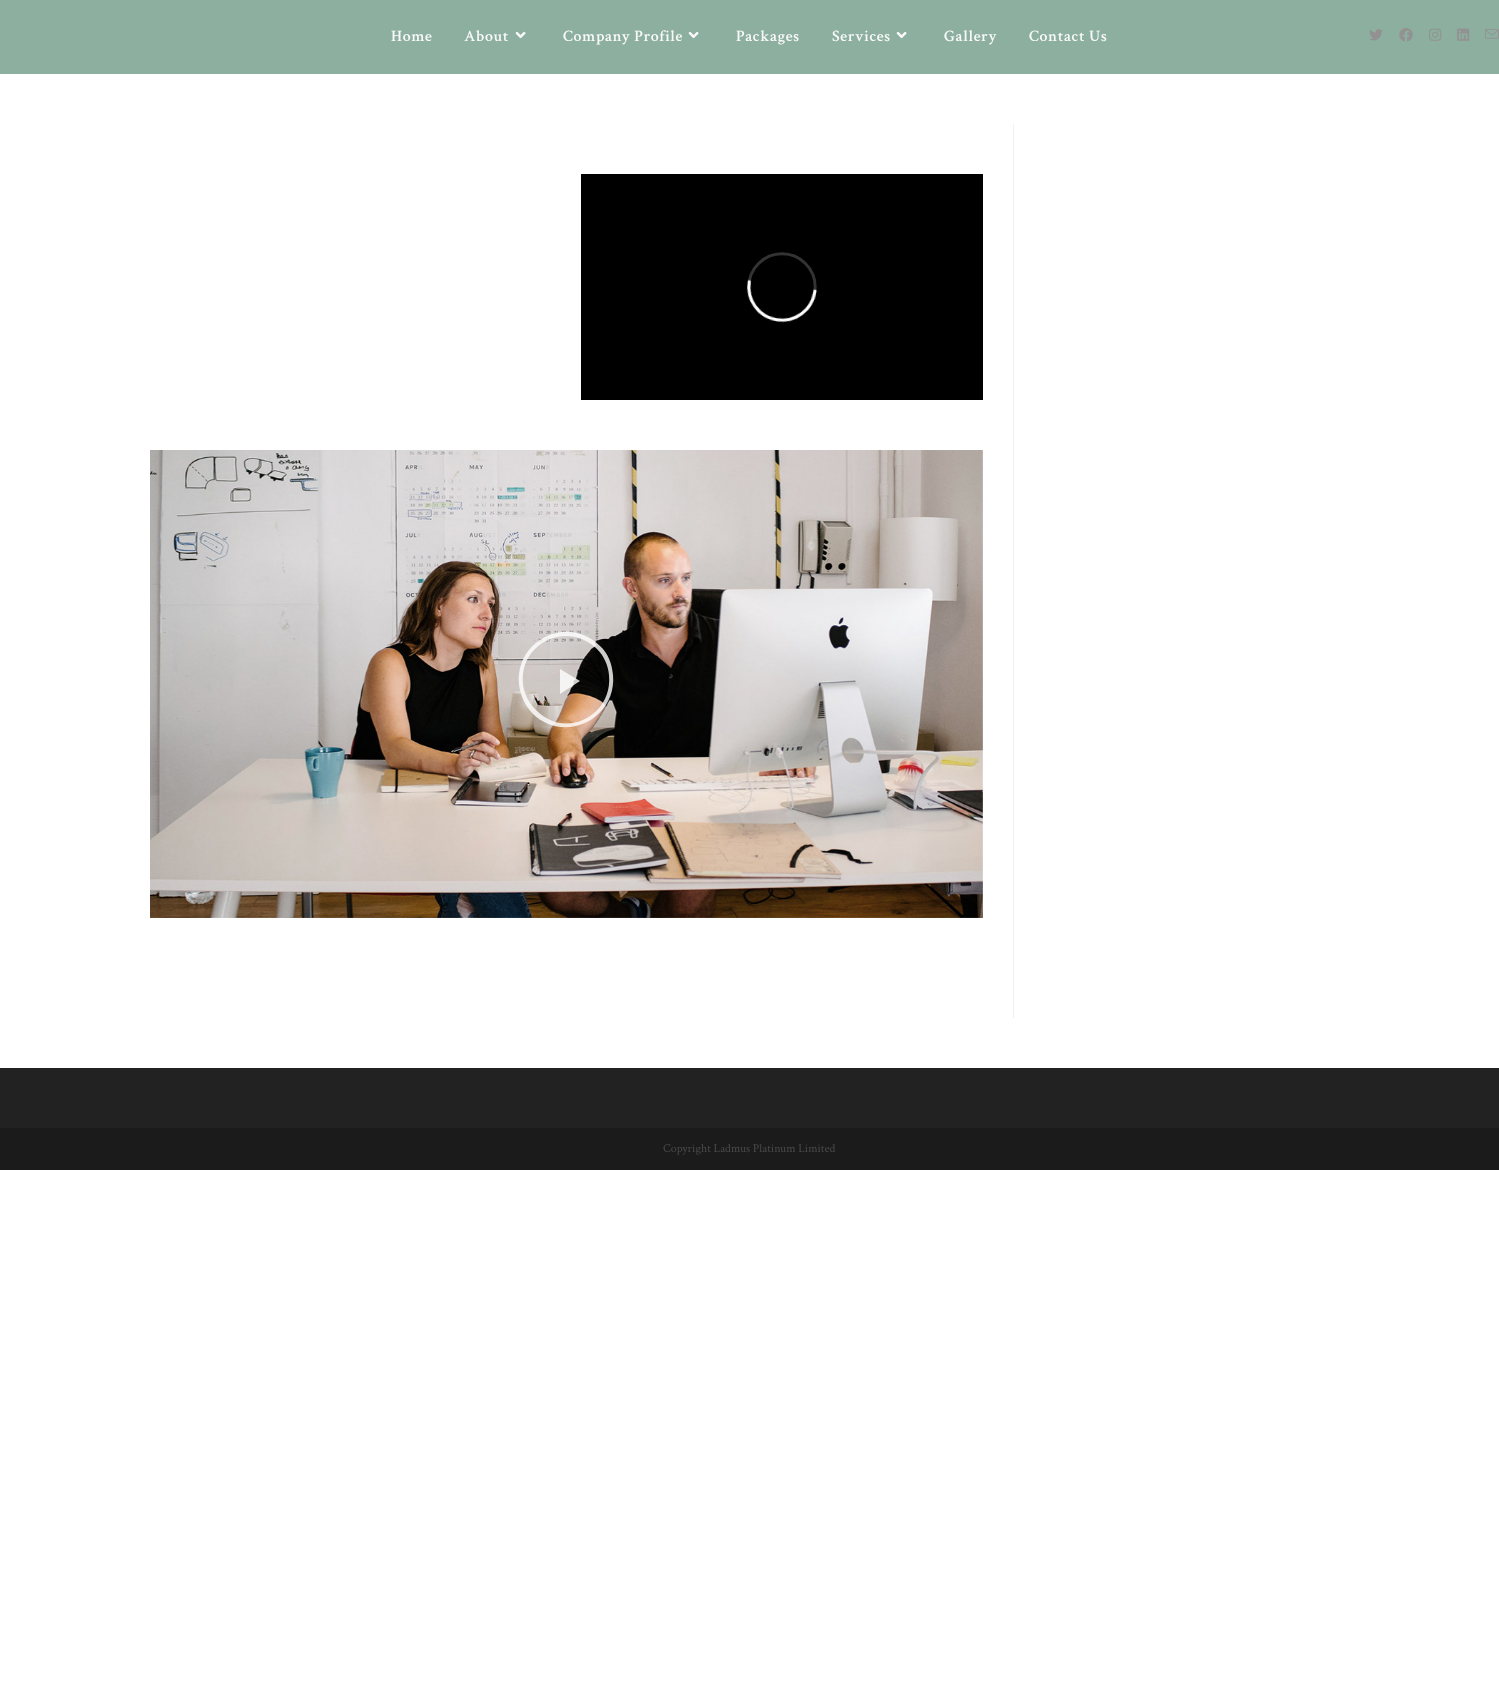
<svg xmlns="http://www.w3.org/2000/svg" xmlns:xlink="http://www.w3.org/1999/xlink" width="1499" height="1693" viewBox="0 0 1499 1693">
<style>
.cls-1{font:600 16px Crimson Text;letter-spacing:0.6px;fill:#f9f9f9}
.cls-2{font:12px Crimson Text;fill:#4a4a4a}
</style>
<rect width="100%" height="100%" fill="#ffffff"/>
<rect fill="#8caf9f" x="0" y="0" width="1499" height="74"/>
<image xlink:href="image0.png" x="515" y="31" width="11" height="8"/>
<image xlink:href="image0.png" x="688" y="31" width="11" height="8"/>
<image xlink:href="image0.png" x="896" y="31" width="11" height="8"/>
<image xlink:href="image1.png" x="1369" y="29" width="14" height="12"/>
<image xlink:href="image2.png" x="1399" y="28" width="14" height="14"/>
<image xlink:href="image3.png" x="1429" y="28" width="13" height="13"/>
<image xlink:href="image4.png" x="1457" y="28" width="13" height="13"/>
<image xlink:href="image5.png" x="1485" y="29" width="14" height="10"/>
<rect fill="#f1f1f1" x="1013" y="124" width="1" height="894"/>
<rect fill="#000000" x="581" y="174" width="402" height="226"/>
<image xlink:href="image6.png" x="746" y="252" width="71" height="71"/>
<image xlink:href="image7.png" x="150" y="450" width="833" height="468"/>
<path fill="#ffffff" fill-opacity="0.8" d="M600 646C568 614 515 640 519 684C520 695 525 705 532 713C564 745 617 719 613 675C612 664 608 653 600 646M597 649C604 656 608 665 609 675C613 716 565 740 536 710C529 703 524 694 523 684C519 643 567 620 597 649M560 669V694L580 681Z"/>
<rect fill="#222222" x="0" y="1068" width="1499" height="60"/>
<rect fill="#1b1b1b" x="0" y="1128" width="1499" height="42"/>
<text class="cls-1" x="391" y="41">Home</text>
<text class="cls-1" x="464" y="41">About</text>
<text class="cls-1" x="563" y="41">Company Profile</text>
<text class="cls-1" x="736" y="41">Packages</text>
<text class="cls-1" x="832" y="41">Services</text>
<text class="cls-1" x="944" y="41">Gallery</text>
<text class="cls-1" x="1029" y="41">Contact Us</text>
<text class="cls-2" x="663" y="1152">Copyright Ladmus Platinum Limited</text>
</svg>
